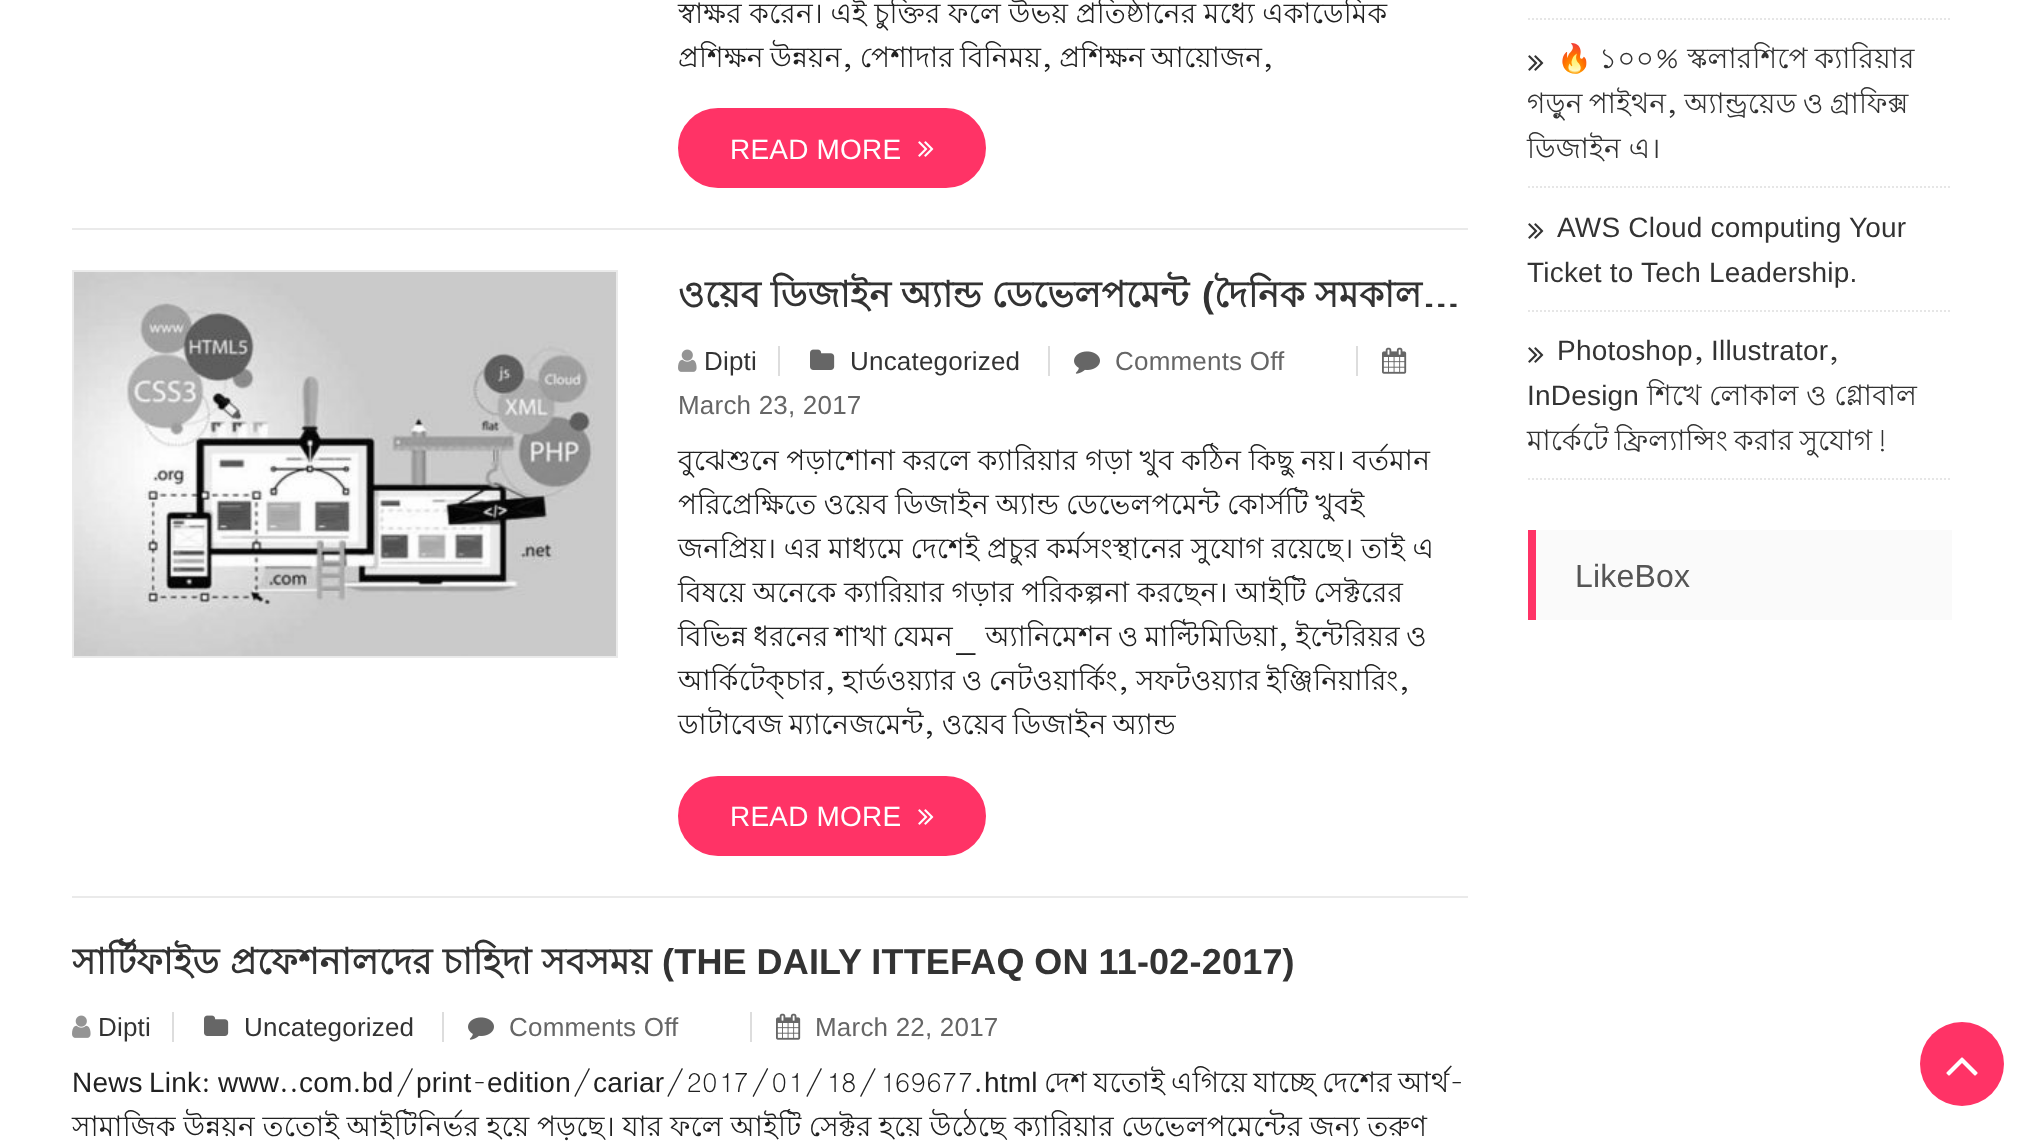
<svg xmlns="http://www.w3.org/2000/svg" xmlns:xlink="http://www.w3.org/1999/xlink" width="2024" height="1141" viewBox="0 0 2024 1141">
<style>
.cls-1{font:28px Lohit Bengali;letter-spacing:0.2px;fill:#212121}
.cls-2{font:28px Liberation Sans;letter-spacing:0.2px;fill:#ffffff}
.cls-3{font:bold 36px Lohit Bengali;letter-spacing:0.2px;fill:#333333}
.cls-4{font:bold 36px Liberation Sans;letter-spacing:0.2px;fill:#333333}
.cls-5{font:26px Liberation Sans;letter-spacing:0.2px;fill:#333333}
.cls-6{font:26px Liberation Sans;letter-spacing:0.2px;fill:#666666}
.cls-7{font:28px Liberation Sans;letter-spacing:0.2px;fill:#212121}
.cls-8{font:28px Noto Color Emoji;letter-spacing:0.2px;fill:#333333}
.cls-9{font:28px Lohit Bengali;letter-spacing:0.2px;fill:#333333}
.cls-10{font:28px Liberation Sans;letter-spacing:0.2px;fill:#333333}
.cls-11{font:32px Liberation Sans;letter-spacing:0.2px;fill:#555555}
</style>
<defs>
<clipPath id="clip1"><rect x="72" y="938" width="1396" height="48"/></clipPath>
</defs>
<rect width="100%" height="100%" fill="#ffffff"/>
<rect fill="#eaeaea" x="72" y="228" width="1396" height="2"/>
<rect fill="#ff3366" stroke="#ff3366" stroke-width="2" x="679" y="109" width="306" height="78" rx="39"/>
<image xlink:href="image0.png" x="918" y="141" width="16" height="16"/>
<rect fill="#eaeaea" x="72" y="896" width="1396" height="2"/>
<rect fill="none" stroke="#eaeaea" stroke-width="2" x="73" y="271" width="544" height="386"/>
<image xlink:href="image1.png" x="74" y="272" width="542" height="384"/>
<rect fill="#dddddd" x="778" y="346" width="2" height="30"/>
<image xlink:href="image2.png" x="678" y="349" width="19" height="23"/>
<rect fill="#dddddd" x="1048" y="346" width="2" height="30"/>
<image xlink:href="image3.png" x="810" y="349" width="25" height="21"/>
<rect fill="#dddddd" x="1356" y="346" width="2" height="30"/>
<image xlink:href="image4.png" x="1074" y="351" width="26" height="23"/>
<image xlink:href="image5.png" x="1382" y="347" width="25" height="27"/>
<rect fill="#ff3366" stroke="#ff3366" stroke-width="2" x="679" y="777" width="306" height="78" rx="39"/>
<image xlink:href="image0.png" x="918" y="809" width="16" height="16"/>
<rect fill="#dddddd" x="172" y="1012" width="2" height="30"/>
<image xlink:href="image2.png" x="72" y="1015" width="19" height="23"/>
<rect fill="#dddddd" x="442" y="1012" width="2" height="30"/>
<image xlink:href="image3.png" x="204" y="1015" width="25" height="21"/>
<rect fill="#dddddd" x="750" y="1012" width="2" height="30"/>
<image xlink:href="image4.png" x="468" y="1017" width="26" height="23"/>
<image xlink:href="image5.png" x="776" y="1013" width="25" height="27"/>
<path fill="none" stroke="#e6e6e6" stroke-width="2" stroke-dasharray="2 2" d="M1528 19H1952"/>
<path fill="none" stroke="#e6e6e6" stroke-width="2" stroke-dasharray="2 2" d="M1528 187H1952"/>
<image xlink:href="image6.png" x="1528" y="55" width="16" height="16"/>
<path fill="none" stroke="#e6e6e6" stroke-width="2" stroke-dasharray="2 2" d="M1528 311H1952"/>
<image xlink:href="image6.png" x="1528" y="223" width="16" height="16"/>
<path fill="none" stroke="#e6e6e6" stroke-width="2" stroke-dasharray="2 2" d="M1528 479H1952"/>
<image xlink:href="image6.png" x="1528" y="347" width="16" height="16"/>
<rect fill="#fafafa" x="1536" y="530" width="416" height="90"/>
<rect fill="#ff3366" x="1528" y="530" width="8" height="90"/>
<circle fill="#ff3366" cx="1962" cy="1064" r="42"/>
<image xlink:href="image7.png" x="1946" y="1057" width="32" height="19"/>
<text class="cls-1"><tspan x="678" y="23" word-spacing="-0.5">স্বাক্ষর করেন। এই চুক্তির ফলে উভয় প্রতিষ্ঠানের মধ্যে একাডেমিক</tspan><tspan x="678" y="67" word-spacing="-1.75">প্রশিক্ষন উন্নয়ন, পেশাদার বিনিময়, প্রশিক্ষন আয়োজন,</tspan></text>
<text class="cls-2" x="730" y="159">READ MORE</text>
<text class="cls-3" x="678" y="307" word-spacing="-0.5">ওয়েব ডিজাইন অ্যান্ড ডেভেলপমেন্ট</text>
<text class="cls-4" x="1202" y="307">(</text>
<text class="cls-3" x="1214" y="307" word-spacing="-0.5">দৈনিক সমকাল…</text>
<text class="cls-5" x="704" y="370">Dipti</text>
<text class="cls-5" x="850" y="370">Uncategorized</text>
<text class="cls-6" x="1115" y="370">Comments Off</text>
<text class="cls-6" x="678" y="414">March 23, 2017</text>
<text class="cls-1"><tspan x="678" y="470" word-spacing="-0.5">বুঝেশুনে পড়াশোনা করলে ক্যারিয়ার গড়া খুব কঠিন কিছু নয়। বর্তমান</tspan><tspan x="678" y="514" word-spacing="-1">পরিপ্রেক্ষিতে ওয়েব ডিজাইন অ্যান্ড ডেভেলপমেন্ট কোর্সটি খুবই</tspan><tspan x="678" y="558" word-spacing="-0.5">জনপ্রিয়। এর মাধ্যমে দেশেই প্রচুর কর্মসংস্থানের সুযোগ রয়েছে। তাই এ</tspan><tspan x="678" y="602" word-spacing="-0.5">বিষয়ে অনেকে ক্যারিয়ার গড়ার পরিকল্পনা করছেন। আইটি সেক্টরের</tspan><tspan x="678" y="646" word-spacing="-1.75">বিভিন্ন ধরনের শাখা যেমন_ অ্যানিমেশন ও মাল্টিমিডিয়া, ইন্টেরিয়র ও</tspan><tspan x="678" y="690" word-spacing="-1.75">আর্কিটেক্চার, হার্ডওয়্যার ও নেটওয়ার্কিং, সফটওয়্যার ইঞ্জিনিয়ারিং,</tspan><tspan x="678" y="734" word-spacing="-1.75">ডাটাবেজ ম্যানেজমেন্ট, ওয়েব ডিজাইন অ্যান্ড</tspan></text>
<text class="cls-2" x="730" y="826">READ MORE</text>
<g clip-path="url(#clip1)">
<text class="cls-3" x="72" y="974">সার্টিফাইড</text>
</g>
<text class="cls-3" x="230" y="974">প্রফেশনালদের চাহিদা সবসময়</text>
<text class="cls-4" x="662" y="974" word-spacing="-0.5">(THE DAILY ITTEFAQ ON 11-02-2017)</text>
<text class="cls-5" x="98" y="1036">Dipti</text>
<text class="cls-5" x="244" y="1036">Uncategorized</text>
<text class="cls-6" x="509" y="1036">Comments Off</text>
<text class="cls-6" x="815" y="1036">March 22, 2017</text>
<text class="cls-7" x="72" y="1092">News</text>
<text class="cls-7" x="149" y="1092">Link</text>
<text class="cls-1" x="201" y="1092">:</text>
<text class="cls-7" x="218" y="1092">www</text>
<text class="cls-7" x="299" y="1092">com</text>
<text class="cls-7" x="362" y="1092">bd</text>
<text class="cls-1" x="394" y="1092">/</text>
<text class="cls-7" x="416" y="1092">print</text>
<text class="cls-1" x="472" y="1092">-</text>
<text class="cls-7" x="487" y="1092">edition</text>
<text class="cls-1" x="571" y="1092">/</text>
<text class="cls-7" x="593" y="1092">cariar</text>
<text class="cls-1" x="664" y="1092">/2017/01/18/169677.</text>
<text class="cls-7" x="984" y="1092">html</text>
<text class="cls-1" x="1044" y="1092" word-spacing="-1.75">দেশ যতোই এগিয়ে যাচ্ছে দেশের আর্থ-</text>
<text class="cls-1" x="279" y="1092">..</text>
<text class="cls-1" x="352" y="1092">.</text>
<text class="cls-1" x="72" y="1136" word-spacing="-0.5">সামাজিক উন্নয়ন ততোই আইটিনির্ভর হয়ে পড়ছে। যার ফলে আইটি সেক্টর হয়ে উঠেছে ক্যারিয়ার ডেভেলপমেন্টের জন্য তরুণ</text>
<text class="cls-8" x="1557" y="68">🔥</text>
<text class="cls-9" x="1599" y="68" word-spacing="-1">১০০% স্কলারশিপে ক্যারিয়ার</text>
<text class="cls-9"><tspan x="1527" y="113" word-spacing="-1.75">গড়ুন পাইথন, অ্যান্ড্রয়েড ও গ্রাফিক্স</tspan><tspan x="1527" y="158">ডিজাইন এ।</tspan></text>
<text class="cls-10" x="1557" y="237">AWS Cloud computing Your</text>
<text class="cls-10" x="1527" y="282">Ticket to Tech Leadership.</text>
<text class="cls-10" x="1557" y="360">Photoshop</text>
<text class="cls-9" x="1693" y="360">,</text>
<text class="cls-10" x="1711" y="360">Illustrator</text>
<text class="cls-9" x="1828" y="360">,</text>
<text class="cls-10" x="1527" y="405">InDesign</text>
<text class="cls-9" x="1647" y="405" word-spacing="-0.5">শিখে লোকাল ও গ্লোবাল</text>
<text class="cls-9" x="1527" y="450" word-spacing="-1.75">মার্কেটে ফ্রিল্যান্সিং করার সুযোগ!</text>
<text class="cls-11" x="1575" y="587">LikeBox</text>
</svg>
